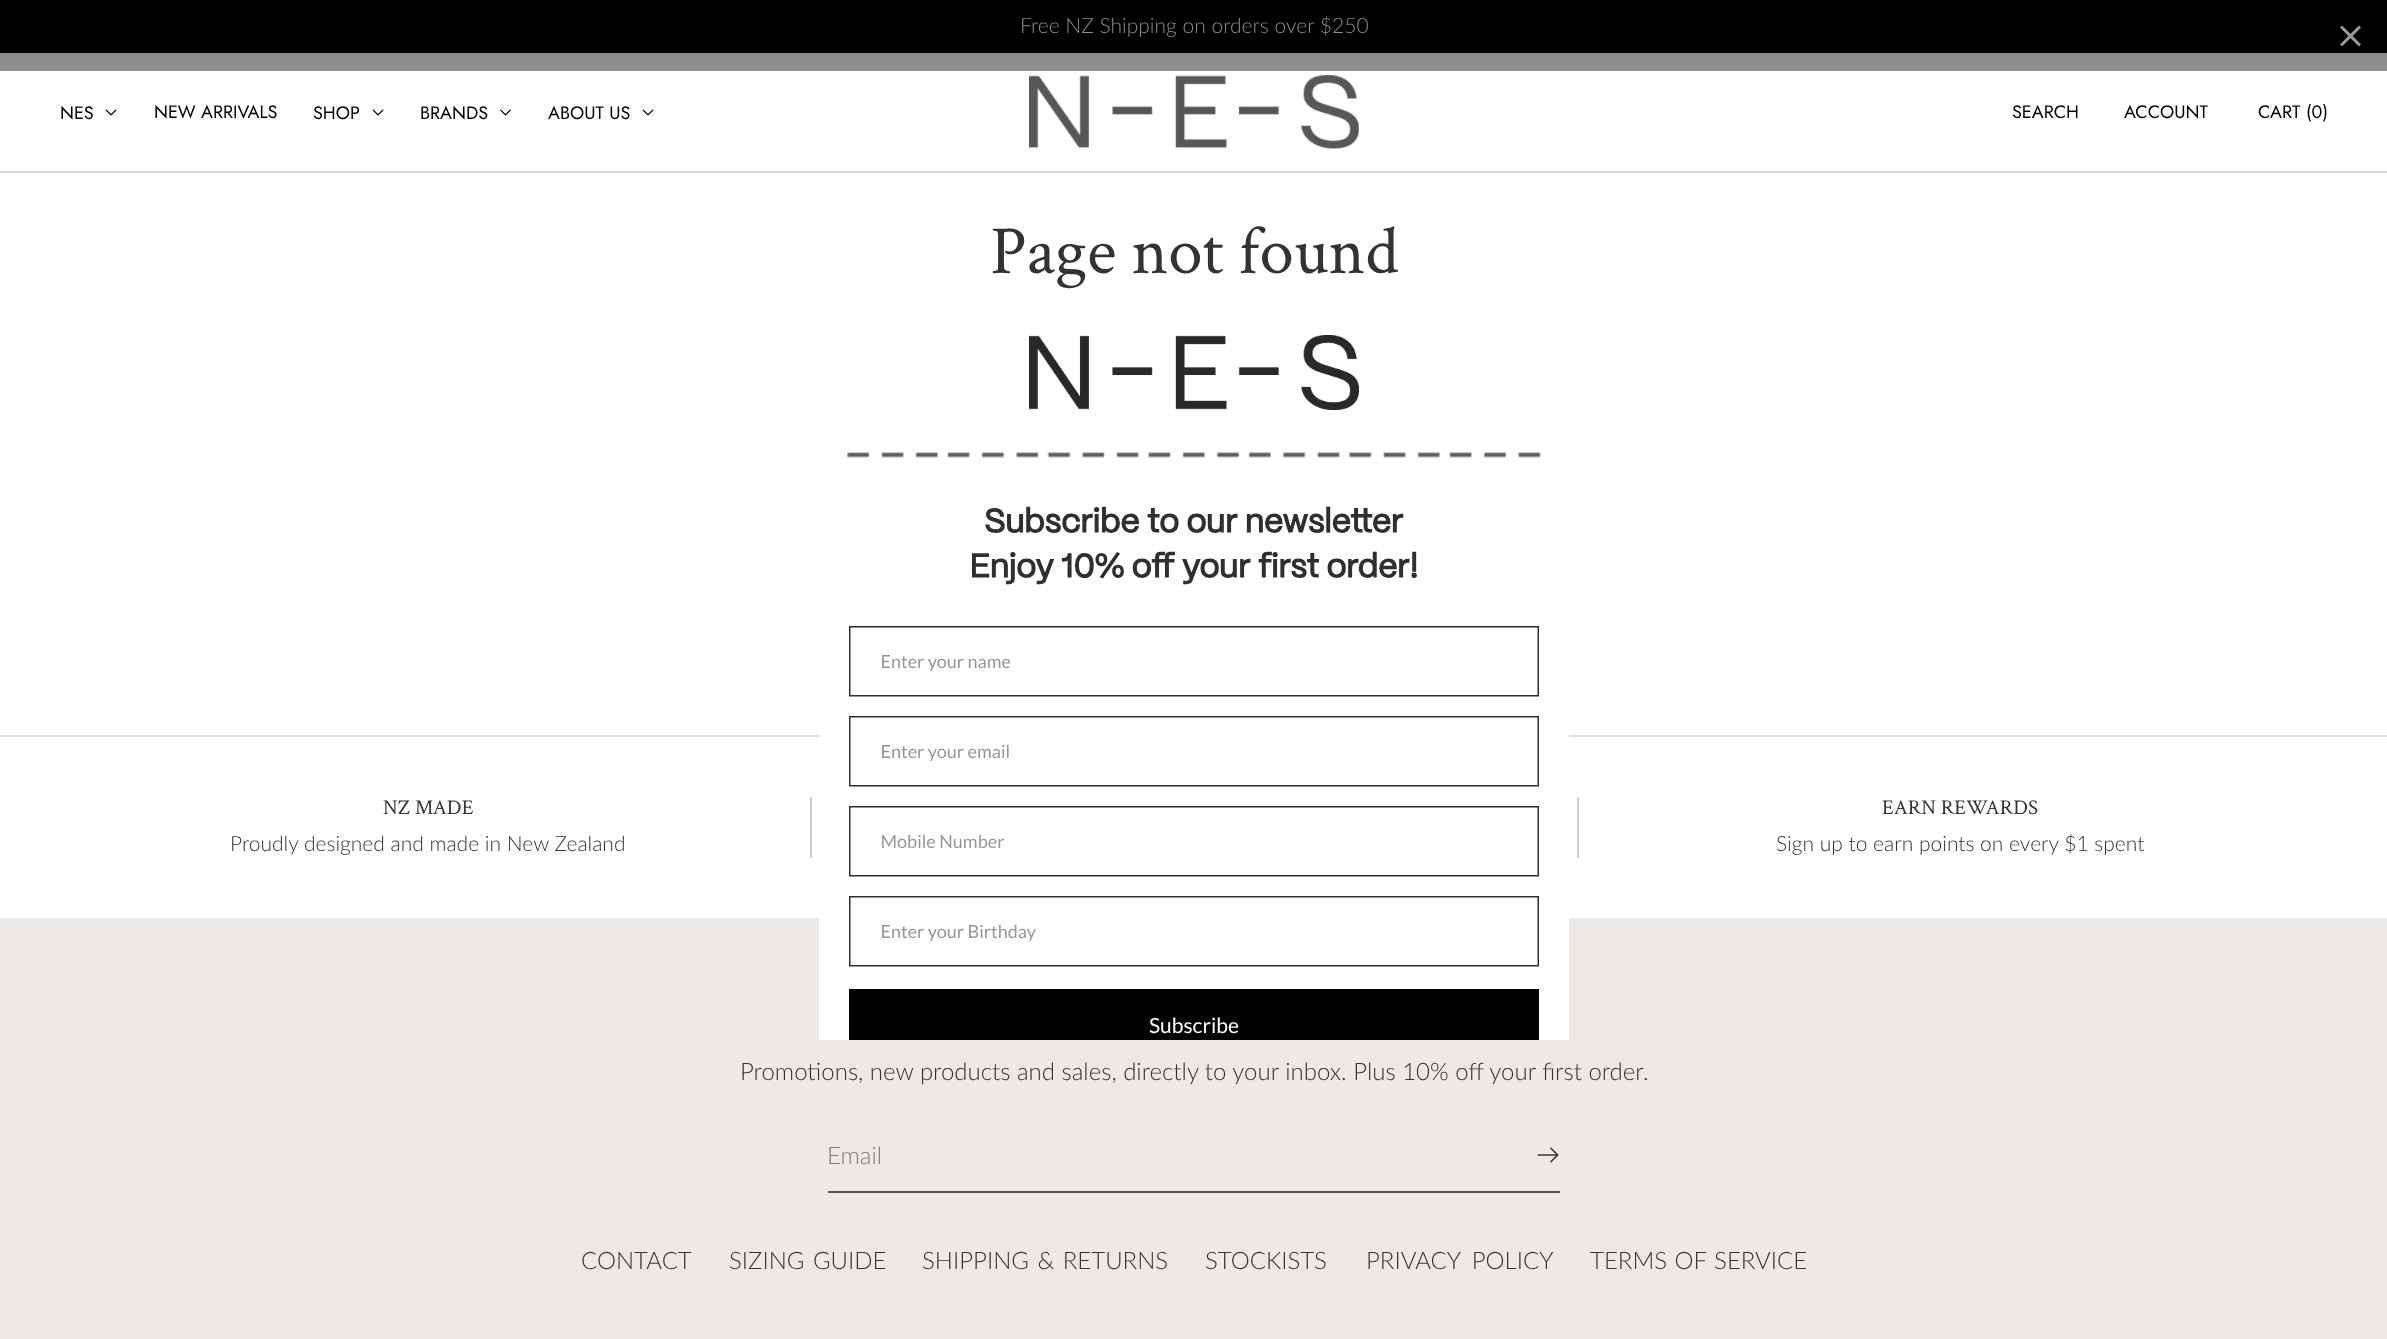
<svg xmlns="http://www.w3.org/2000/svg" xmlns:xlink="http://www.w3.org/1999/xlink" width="2387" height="1339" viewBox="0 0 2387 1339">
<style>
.cls-1{font:300 21px Lato;fill:#8c8c8c}
.cls-2{font:18px Jost;fill:#000000}
.cls-3{font:69px Crimson Text;fill:#333333}
.cls-4{font:21px Crimson Text;fill:#333333}
.cls-5{font:300 21px Lato;fill:#333333}
.cls-6{font:300 24px Lato;fill:#333333}
.cls-7{font:300 24px Lato;fill:#7d7c7b}
</style>
<rect width="100%" height="100%" fill="#ffffff"/>
<rect fill="#8c8c8c" x="0" y="53" width="2387" height="18"/>
<rect fill="#000000" x="0" y="0" width="2387" height="53"/>
<rect fill="#d9d9d9" x="0" y="171" width="2387" height="2"/>
<image xlink:href="image0.png" x="105" y="109" width="12" height="7"/>
<image xlink:href="image0.png" x="372" y="109" width="12" height="7"/>
<image xlink:href="image1.png" x="500" y="109" width="11" height="7"/>
<image xlink:href="image0.png" x="642" y="109" width="12" height="7"/>
<image xlink:href="image2.png" x="1029" y="75" width="330" height="74"/>
<image xlink:href="image3.png" x="2340" y="25" width="21" height="22"/>
<rect fill="#e0e0e0" x="0" y="735" width="2387" height="2"/>
<rect fill="#ede9e6" x="0" y="918" width="2387" height="421"/>
<image xlink:href="image4.png" x="819" y="335" width="750" height="705"/>
<rect fill="#cccccc" x="810" y="797" width="2" height="61"/>
<rect fill="#cccccc" x="1577" y="797" width="2" height="61"/>
<rect fill="#585757" x="828" y="1191" width="732" height="2"/>
<image xlink:href="image5.png" x="1537" y="1147" width="22" height="16"/>
<text class="cls-1" x="1020" y="33">Free NZ Shipping on orders over $250</text>
<text class="cls-2" x="60" y="119">NES</text>
<text class="cls-2" x="154" y="118">NEW ARRIVALS</text>
<text class="cls-2" x="313" y="119">SHOP</text>
<text class="cls-2" x="420" y="119">BRANDS</text>
<text class="cls-2" x="548" y="119">ABOUT US</text>
<text class="cls-2" x="2012" y="118">SEARCH</text>
<text class="cls-2" x="2124" y="118">ACCOUNT</text>
<text class="cls-2" x="2258" y="118">CART</text>
<text class="cls-2" x="2306" y="118">(0)</text>
<text class="cls-3" x="990" y="273">Page not found</text>
<text class="cls-4" x="383" y="814">NZ MADE</text>
<text class="cls-5" x="230" y="851">Proudly designed and made in New Zealand</text>
<text class="cls-4" x="1882" y="814">EARN REWARDS</text>
<text class="cls-5" x="1776" y="851">Sign up to earn points on every $1 spent</text>
<text class="cls-6" x="740" y="1080">Promotions, new products and sales, directly to your inbox. Plus 10% off your first order.</text>
<text class="cls-7" x="827" y="1164">Email</text>
<text class="cls-6" x="581" y="1269">CONTACT</text>
<text class="cls-6" x="729" y="1269" word-spacing="2">SIZING GUIDE</text>
<text class="cls-6" x="922" y="1269" word-spacing="2">SHIPPING &amp; RETURNS</text>
<text class="cls-6" x="1205" y="1269">STOCKISTS</text>
<text class="cls-6" x="1366" y="1269" word-spacing="5">PRIVACY POLICY</text>
<text class="cls-6" x="1590" y="1269" word-spacing="1">TERMS OF SERVICE</text>
</svg>
